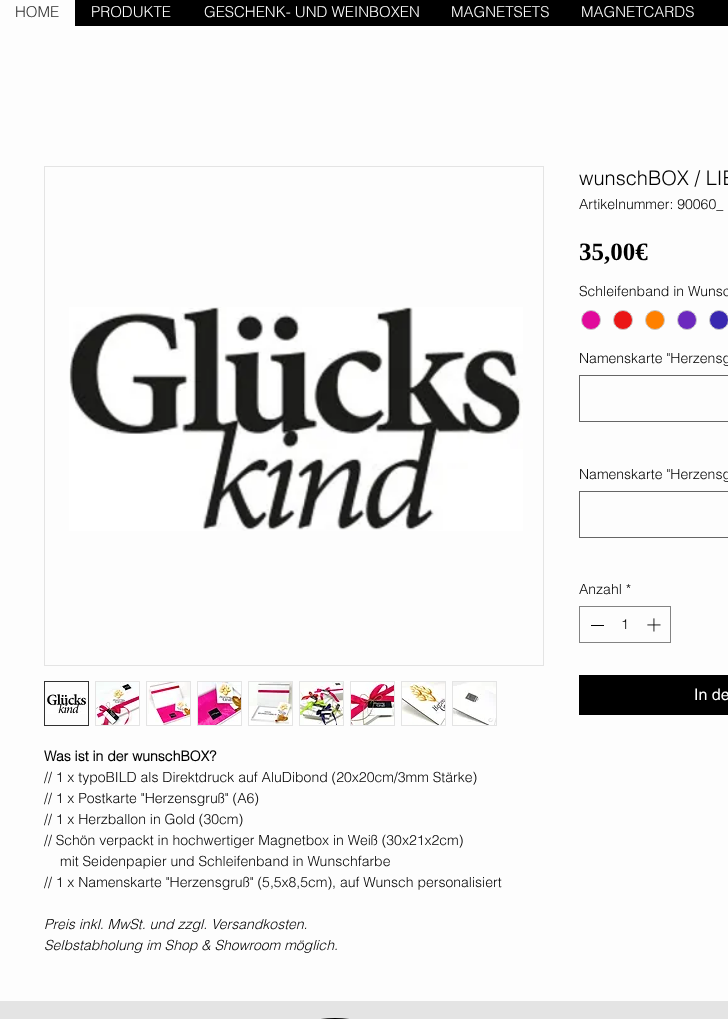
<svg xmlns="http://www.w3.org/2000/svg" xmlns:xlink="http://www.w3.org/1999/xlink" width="728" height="1019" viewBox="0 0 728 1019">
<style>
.cls-1{font:300 15px helvetica;fill:#313131}
.cls-2{font:300 15px helvetica;fill:#ffffff}
.cls-3{font:300 20px helvetica;fill:#000000}
.cls-4{font:300 14px helvetica;fill:#000000}
.cls-5{font:bold 25px Liberation Serif;fill:#000000}
.cls-6{font:16px helvetica;fill:#ffffff}
.cls-7{font:bold 14px helvetica;fill:#000000}
.cls-8{font:italic 300 14px helvetica;fill:#000000}
</style>
<rect width="100%" height="100%" fill="#fdfdfd"/>
<rect fill="#000000" x="75" y="0" width="653" height="26"/>
<circle fill="#e10b9b" stroke="#c9c9c9" cx="591" cy="320" r="9.5"/>
<circle fill="#eb1717" stroke="#c9c9c9" cx="623" cy="320" r="9.5"/>
<circle fill="#ff8000" stroke="#c9c9c9" cx="655" cy="320" r="9.5"/>
<circle fill="#6c28be" stroke="#c9c9c9" cx="687" cy="320" r="9.5"/>
<circle fill="#3928b0" stroke="#c9c9c9" cx="719" cy="320" r="9.5"/>
<rect fill="none" stroke="#666666" x="579.5" y="375.5" width="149" height="46"/>
<rect fill="none" stroke="#666666" x="579.5" y="491.5" width="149" height="46"/>
<rect fill="none" stroke="#838383" x="579.5" y="606.5" width="91" height="36"/>
<rect fill="#000000" x="591" y="625" width="13" height="1"/>
<image xlink:href="image0.png" x="647" y="618" width="14" height="14"/>
<rect fill="#000000" x="579" y="675" width="149" height="40"/>
<rect fill="none" stroke="#e4e4e4" x="44.5" y="166.5" width="499" height="499"/>
<image xlink:href="image1.png" x="69" y="307" width="454" height="224"/>
<rect fill="none" stroke="#313131" x="44.5" y="681.5" width="44" height="44"/>
<image xlink:href="image2.png" x="47" y="694" width="40" height="20"/>
<rect fill="none" stroke="#e4e4e4" x="95.5" y="681.5" width="44" height="44"/>
<image xlink:href="image3.png" x="96" y="682" width="43" height="43"/>
<rect fill="none" stroke="#e4e4e4" x="146.5" y="681.5" width="44" height="44"/>
<image xlink:href="image4.png" x="148" y="682" width="42" height="43"/>
<rect fill="none" stroke="#e4e4e4" x="197.5" y="681.5" width="44" height="44"/>
<image xlink:href="image5.png" x="198" y="682" width="43" height="43"/>
<rect fill="none" stroke="#e4e4e4" x="248.5" y="681.5" width="44" height="44"/>
<image xlink:href="image6.png" x="249" y="682" width="43" height="43"/>
<rect fill="none" stroke="#e4e4e4" x="299.5" y="681.5" width="44" height="44"/>
<image xlink:href="image7.png" x="300" y="682" width="43" height="43"/>
<rect fill="none" stroke="#e4e4e4" x="350.5" y="681.5" width="44" height="44"/>
<image xlink:href="image8.png" x="351" y="682" width="43" height="43"/>
<rect fill="none" stroke="#e4e4e4" x="401.5" y="681.5" width="44" height="44"/>
<image xlink:href="image9.png" x="402" y="682" width="43" height="43"/>
<rect fill="none" stroke="#e4e4e4" x="452.5" y="681.5" width="44" height="44"/>
<image xlink:href="image10.png" x="453" y="682" width="43" height="43"/>
<rect fill="#e4e4e4" x="0" y="1001" width="728" height="18"/>
<rect fill="#000000" x="280" y="1018" width="110" height="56" rx="55"/>
<text class="cls-1" x="15" y="17">HOME</text>
<text class="cls-2" x="91" y="17">PRODUKTE</text>
<text class="cls-2" x="204" y="17">GESCHENK- UND WEINBOXEN</text>
<text class="cls-2" x="451" y="17">MAGNETSETS</text>
<text class="cls-2" x="581" y="17">MAGNETCARDS</text>
<text class="cls-3" x="579" y="185">wunschBOX / LIE</text>
<text class="cls-4" x="579" y="209">Artikelnummer: 90060_</text>
<text class="cls-5" x="579" y="260">35,00€</text>
<text class="cls-4" x="579" y="296">Schleifenband in Wunsc</text>
<text class="cls-4" x="579" y="363">Namenskarte "Herzensg</text>
<text class="cls-4" x="579" y="479">Namenskarte "Herzensg</text>
<text class="cls-4" x="579" y="594">Anzahl *</text>
<text class="cls-4" x="621" y="629">1</text>
<text class="cls-6" x="694" y="700">In de</text>
<text class="cls-7" x="44" y="761">Was ist in der wunschBOX?</text>
<text class="cls-4"><tspan x="44" y="782">// 1 x typoBILD als Direktdruck auf AluDibond (20x20cm/3mm Stärke)</tspan><tspan x="44" y="803">// 1 x Postkarte "Herzensgruß" (A6)</tspan><tspan x="44" y="824">// 1 x Herzballon in Gold (30cm)</tspan><tspan x="44" y="845">// Schön verpackt in hochwertiger Magnetbox in Weiß (30x21x2cm)</tspan></text>
<text class="cls-4" x="60" y="866">mit Seidenpapier und Schleifenband in Wunschfarbe</text>
<text class="cls-4" x="44" y="887">// 1 x Namenskarte "Herzensgruß" (5,5x8,5cm), auf Wunsch personalisiert</text>
<text class="cls-8"><tspan x="44" y="929">Preis inkl. MwSt. und zzgl. Versandkosten.</tspan><tspan x="44" y="950">Selbstabholung im Shop &amp; Showroom möglich.</tspan></text>
</svg>
